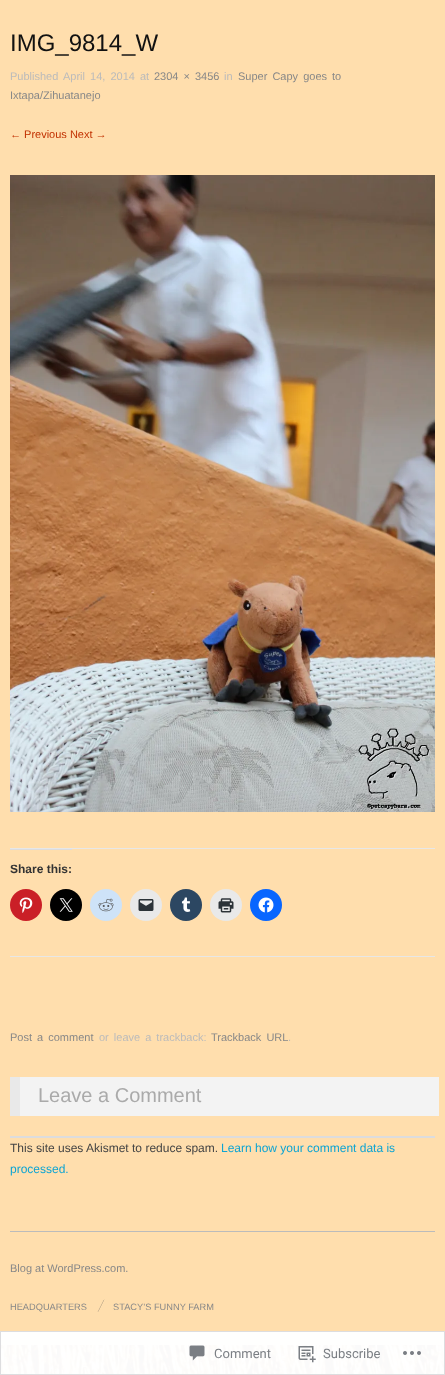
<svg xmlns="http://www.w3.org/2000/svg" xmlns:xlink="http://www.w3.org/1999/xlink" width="445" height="1375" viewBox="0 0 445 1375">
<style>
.cls-1{font:24px Liberation Sans;fill:#111111}
.cls-2{font:11px Liberation Sans;fill:#bbbbbb}
.cls-3{font:11px Liberation Sans;fill:#888888}
.cls-4{font:11px Liberation Sans;fill:#c13000}
.cls-5{font:bold 12px Liberation Sans;fill:#333333}
.cls-6{font:20px Liberation Sans;fill:#aaaaaa}
.cls-7{font:12px Liberation Sans;fill:#444444}
.cls-8{font:12px Liberation Sans;fill:#0da4d3}
.cls-9{font:9.25px Liberation Sans;fill:#888888}
.cls-10{font:13px Roboto;fill:#7b7f84}
</style>
<rect width="100%" height="100%" fill="#ffffff"/>
<image xlink:href="image0.png" x="0" y="1345" width="445" height="30"/>
<rect fill="#ffdead" x="0" y="0" width="445" height="1345"/>
<image xlink:href="image1.png" x="10" y="175" width="425" height="637"/>
<rect fill="#e7e7e7" x="10" y="848" width="425" height="1"/>
<rect fill="#dcdcde" x="10" y="849" width="62" height="1"/>
<circle fill="#ca1f27" cx="26" cy="905" r="16"/>
<image xlink:href="image2.png" x="19" y="897" width="14" height="16"/>
<circle fill="#000000" cx="66" cy="905" r="16"/>
<image xlink:href="image3.png" x="59" y="898" width="14" height="14"/>
<circle fill="#cee3f8" cx="106" cy="905" r="16"/>
<image xlink:href="image4.png" x="98" y="898" width="16" height="14"/>
<circle fill="#e9e9e9" cx="146" cy="905" r="16"/>
<image xlink:href="image5.png" x="138" y="899" width="16" height="12"/>
<circle fill="#2c4762" cx="186" cy="905" r="16"/>
<image xlink:href="image6.png" x="181" y="897" width="10" height="15"/>
<circle fill="#e9e9e9" cx="226" cy="905" r="16"/>
<image xlink:href="image7.png" x="218" y="898" width="16" height="15"/>
<circle fill="#0866ff" cx="266" cy="905" r="16"/>
<image xlink:href="image8.png" x="258" y="897" width="16" height="16"/>
<rect fill="#e7e7e7" x="10" y="956" width="425" height="1"/>
<rect fill="#f3f3f3" x="20" y="1077" width="419" height="39"/>
<rect fill="#e9e9e9" x="10" y="1077" width="10" height="39"/>
<rect fill="#dcdcde" x="10" y="1136" width="425" height="2"/>
<rect fill="#bbbbbb" x="10" y="1231" width="425" height="1"/>
<image xlink:href="image9.png" x="97" y="1299" width="8" height="13"/>
<rect fill="#ffffff" fill-opacity="0.98" x="0" y="1331" width="445" height="44"/>
<rect fill="none" stroke="#dcdcde" stroke-opacity="0.98" x="0.5" y="1331.5" width="444" height="43"/>
<image xlink:href="image10.png" x="189" y="1345" width="16" height="16"/>
<image xlink:href="image11.png" x="298" y="1346" width="18" height="17"/>
<image xlink:href="image12.png" x="403" y="1351" width="18" height="4"/>
<text class="cls-1" x="10" y="51">IMG_9814_W</text>
<text class="cls-2" x="10" y="80">Published</text>
<text class="cls-2" x="63" y="80" word-spacing="2">April 14, 2014</text>
<text class="cls-2" x="140" y="80">at</text>
<text class="cls-3" x="154" y="80" word-spacing="2">2304 × 3456</text>
<text class="cls-2" x="224" y="80">in</text>
<text class="cls-3" x="238" y="80" word-spacing="2">Super Capy goes to</text>
<text class="cls-3" x="10" y="99">Ixtapa/Zihuatanejo</text>
<text class="cls-4" x="10" y="138">← Previous Next →</text>
<text class="cls-5" x="10" y="873">Share this:</text>
<text class="cls-3" x="10" y="1041" word-spacing="2">Post a comment</text>
<text class="cls-2" x="99" y="1041" word-spacing="2">or leave a trackback:</text>
<text class="cls-3" x="211" y="1041" word-spacing="2">Trackback URL</text>
<text class="cls-2" x="288" y="1041">.</text>
<text class="cls-6" x="38" y="1102">Leave a Comment</text>
<text class="cls-7" x="10" y="1152">This site uses Akismet to reduce spam.</text>
<text class="cls-8" x="221" y="1152">Learn how your comment data is</text>
<text class="cls-8" x="10" y="1173">processed.</text>
<text class="cls-3" x="10" y="1272">Blog at WordPress.com.</text>
<text class="cls-9" x="10" y="1310">HEADQUARTERS</text>
<text class="cls-9" x="113" y="1310">STACY’S FUNNY FARM</text>
<text class="cls-10" x="214" y="1358">Comment</text>
<text class="cls-10" x="323" y="1358">Subscribe</text>
</svg>
